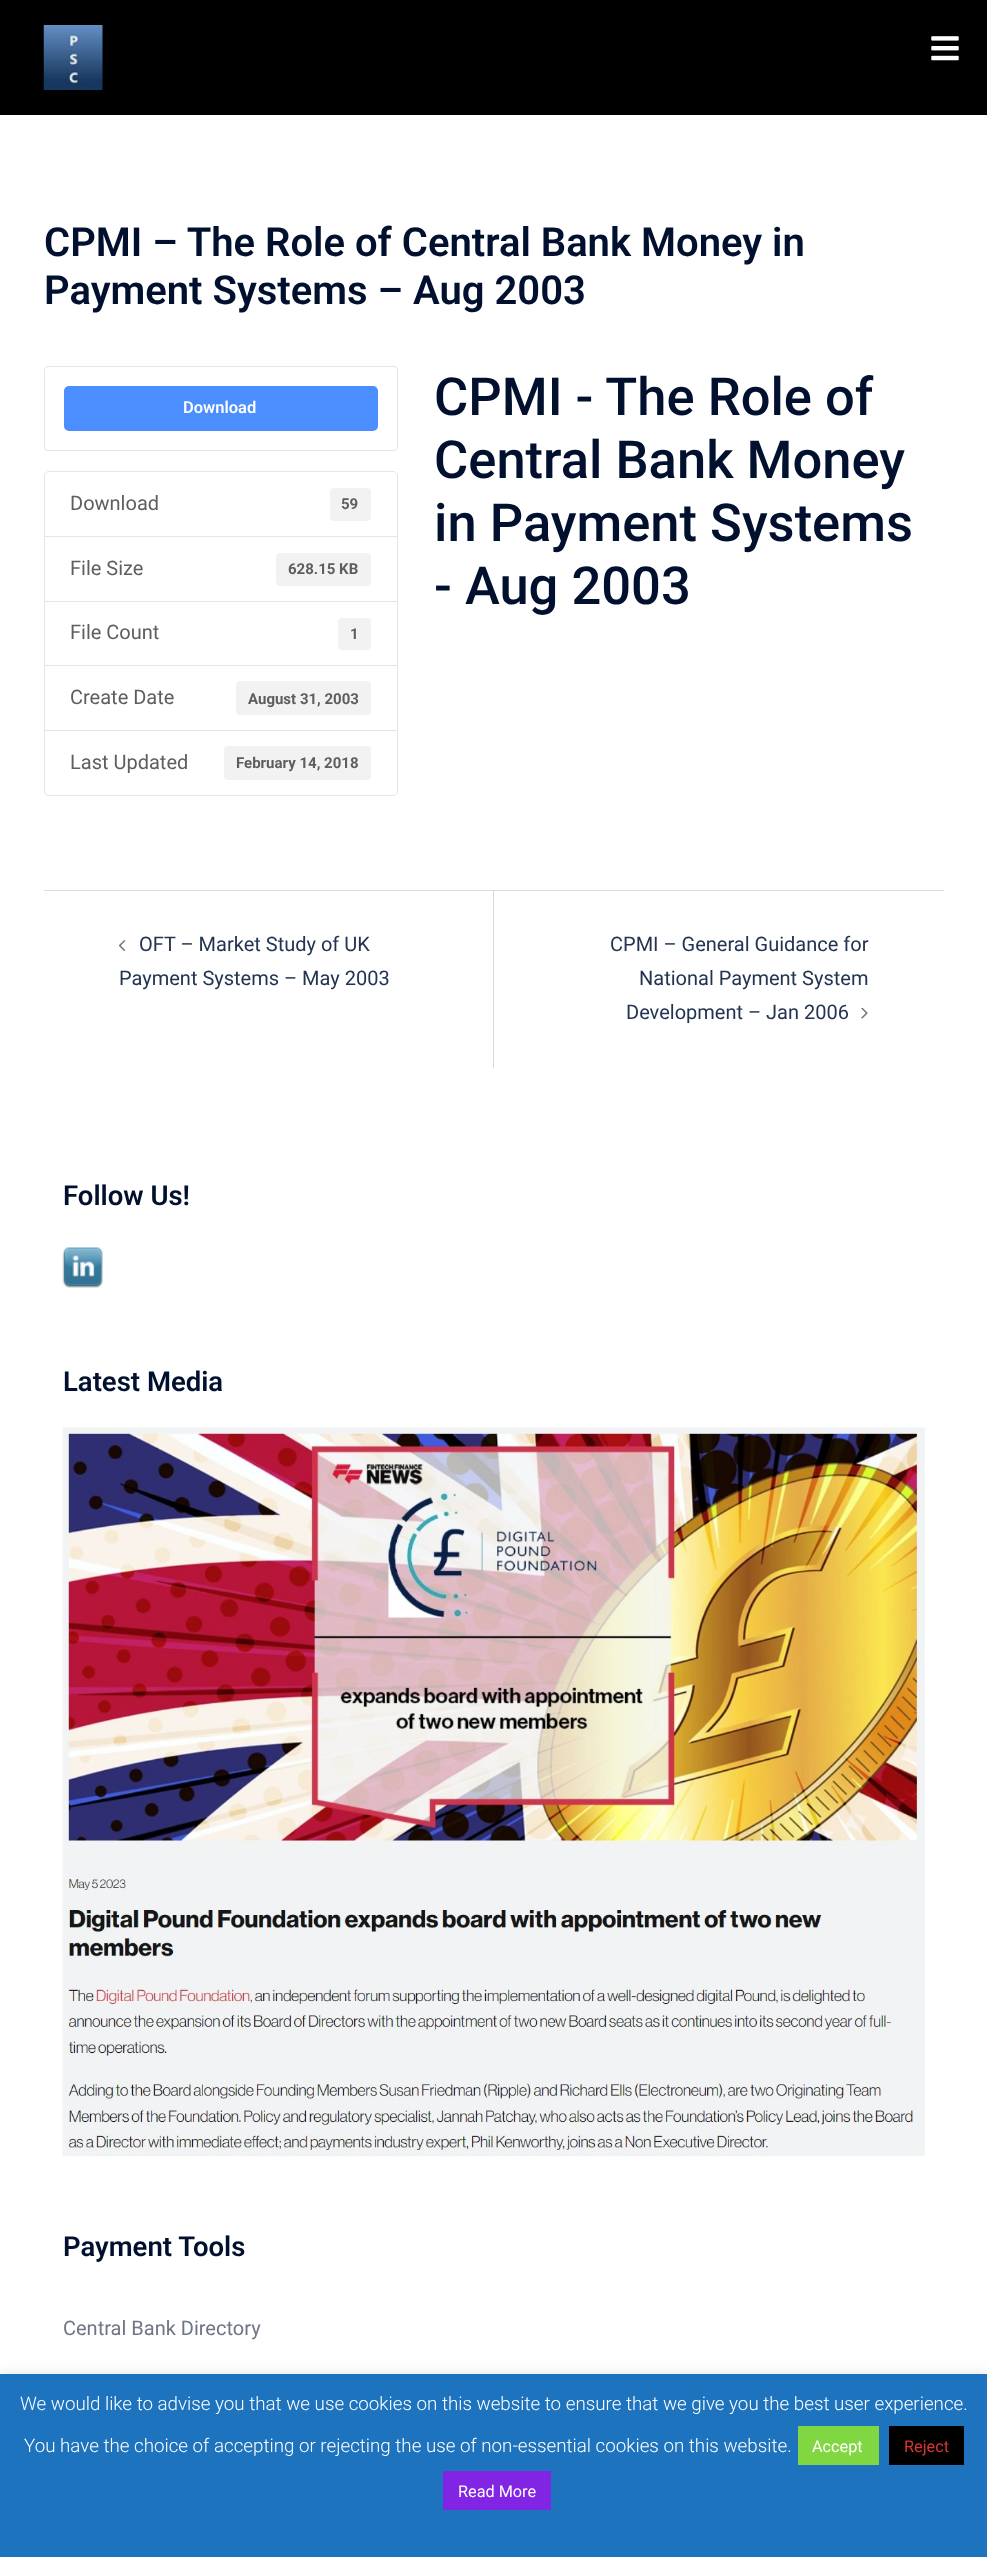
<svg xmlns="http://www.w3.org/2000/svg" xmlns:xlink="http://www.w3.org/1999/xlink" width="987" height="2557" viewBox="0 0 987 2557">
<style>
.cls-1{font:600 40px Roboto;fill:#00102e}
.cls-2{font:600 16.5px Roboto;fill:#ffffff}
.cls-3{font:20px Roboto;fill:#5e5e5e}
.cls-4{font:bold 15px Roboto;fill:#5e5e5e}
.cls-5{font:500 52.5px Roboto;fill:#00102e}
.cls-6{font:20px Roboto;fill:#233452}
.cls-7{font:600 27.5px Roboto;fill:#00102e}
.cls-8{font:20px Roboto;fill:#6d7685}
.cls-9{font:300 18.75px Roboto;fill:#ffffff}
.cls-10{font:16.25px Roboto;fill:#ffffff}
.cls-11{font:16.25px Roboto;fill:#dd3333}
</style>
<rect width="100%" height="100%" fill="#ffffff"/>
<rect fill="#000000" x="0" y="0" width="987" height="115"/>
<image xlink:href="image0.png" x="43" y="25" width="60" height="65"/>
<image xlink:href="image1.png" x="931" y="36" width="28" height="25"/>
<rect fill="none" stroke="#e5e5e5" x="44.5" y="366.5" width="353" height="84" rx="3.5"/>
<rect fill="#4a8eff" x="64" y="386" width="314" height="45" rx="5"/>
<path fill="none" stroke="#e5e5e5" d="M49 471.5H393C395.5 471.5 397.5 473.5 397.5 476V537.5H44.5V476C44.5 473.5 46.5 471.5 49 471.5Z"/>
<rect fill="#f2f2f2" x="330" y="488" width="41" height="33" rx="4"/>
<rect fill="#ffffff" x="45" y="537" width="352" height="1"/>
<rect fill="none" stroke="#e5e5e5" x="44.5" y="536.5" width="353" height="66"/>
<rect fill="#f2f2f2" x="276" y="553" width="95" height="33" rx="4"/>
<rect fill="#ffffff" x="45" y="602" width="352" height="1"/>
<rect fill="none" stroke="#e5e5e5" x="44.5" y="601.5" width="353" height="64"/>
<rect fill="#f2f2f2" x="338" y="618" width="33" height="32" rx="4"/>
<rect fill="none" stroke="#e5e5e5" x="44.5" y="665.5" width="353" height="65"/>
<rect fill="#f2f2f2" x="236" y="681" width="135" height="34" rx="4"/>
<path fill="#ffffff" stroke="#e5e5e5" d="M44.5 730.5H397.5V791C397.5 793.5 395.5 795.5 393 795.5H49C46.5 795.5 44.5 793.5 44.5 791Z"/>
<rect fill="#f2f2f2" x="224" y="746" width="147" height="34" rx="4"/>
<rect fill="#dbdbdb" x="44" y="890" width="900" height="1"/>
<rect fill="#dbdbdb" x="493" y="891" width="1" height="177"/>
<image xlink:href="image2.png" x="119" y="940" width="7" height="11"/>
<image xlink:href="image3.png" x="861" y="1008" width="7" height="11"/>
<image xlink:href="image4.png" x="62" y="1247" width="41" height="41"/>
<image xlink:href="image5.png" x="62" y="1427" width="863" height="730"/>
<rect fill="#acabab" fill-opacity="0.3" filter="blur(6px)" x="0" y="2373" width="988" height="183"/>
<rect fill="#1e73be" x="0" y="2374" width="987" height="183"/>
<rect fill="#81d742" x="798" y="2426" width="81" height="39"/>
<rect fill="#000000" x="889" y="2426" width="75" height="39"/>
<rect fill="#8224e3" x="443" y="2471" width="108" height="39"/>
<text class="cls-1"><tspan x="44" y="256">CPMI – The Role of Central Bank Money in</tspan><tspan x="44" y="304">Payment Systems – Aug 2003</tspan></text>
<text class="cls-2" x="183" y="413">Download</text>
<text class="cls-3" x="70" y="510">Download</text>
<text class="cls-4" x="341" y="509">59</text>
<text class="cls-3" x="70" y="575">File Size</text>
<text class="cls-4" x="288" y="574">628.15 KB</text>
<text class="cls-3" x="70" y="639">File Count</text>
<text class="cls-4" x="350" y="639">1</text>
<text class="cls-3" x="70" y="704">Create Date</text>
<text class="cls-4" x="248" y="704">August 31, 2003</text>
<text class="cls-3" x="70" y="769">Last Updated</text>
<text class="cls-4" x="236" y="768">February 14, 2018</text>
<text class="cls-5"><tspan x="434" y="415">CPMI - The Role of</tspan><tspan x="434" y="478">Central Bank Money</tspan><tspan x="434" y="541">in Payment Systems</tspan><tspan x="434" y="604">- Aug 2003</tspan></text>
<text class="cls-6" x="139" y="951">OFT – Market Study of UK</text>
<text class="cls-6" x="119" y="985">Payment Systems – May 2003</text>
<text class="cls-6" x="610" y="951">CPMI – General Guidance for</text>
<text class="cls-6" x="639" y="985">National Payment System</text>
<text class="cls-6" x="626" y="1019">Development – Jan 2006</text>
<text class="cls-7" x="63" y="1205">Follow Us!</text>
<text class="cls-7" x="63" y="1391">Latest Media</text>
<text class="cls-7" x="63" y="2256">Payment Tools</text>
<text class="cls-8" x="63" y="2335">Central Bank Directory</text>
<text class="cls-9" x="20" y="2410">We would like to advise you that we use cookies on this website to ensure that we give you the best user experience.</text>
<text class="cls-9" x="24" y="2452">You have the choice of accepting or rejecting the use of non-essential cookies on this website.</text>
<text class="cls-10" x="812" y="2452">Accept</text>
<text class="cls-11" x="904" y="2452">Reject</text>
<text class="cls-10" x="458" y="2497">Read More</text>
</svg>
